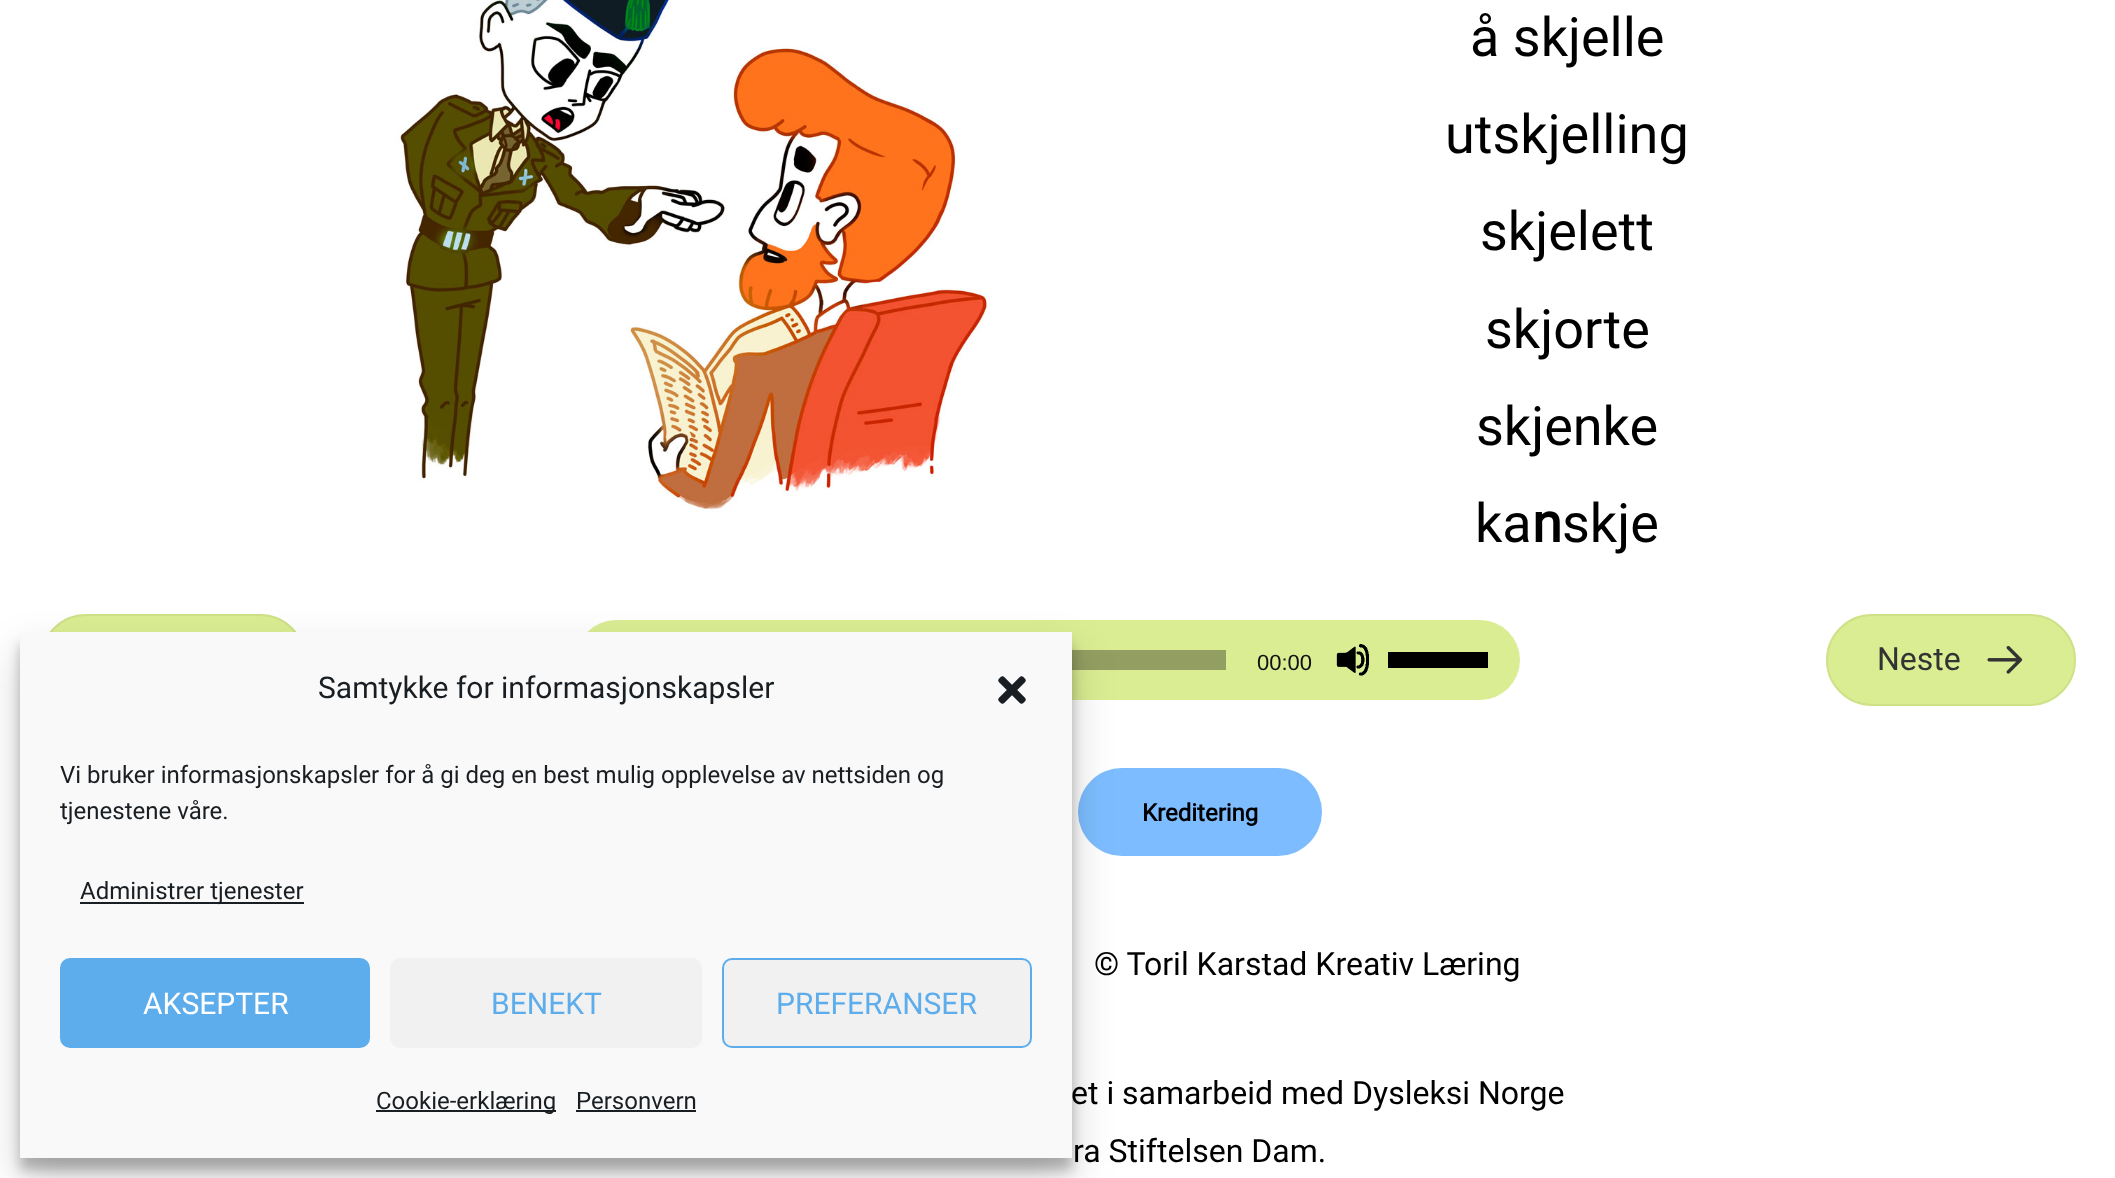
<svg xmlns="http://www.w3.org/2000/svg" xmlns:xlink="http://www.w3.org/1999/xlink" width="2115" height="1178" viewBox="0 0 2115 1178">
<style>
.cls-1{font:30px Roboto;fill:#191e23}
.cls-2{font:24px Roboto;fill:#191e23}
.cls-3{font:30px Roboto;fill:#ffffff}
.cls-4{font:30px Roboto;fill:#5dadec}
.cls-5{font:54px Roboto;fill:#000000}
.cls-6{font:bold 54px Roboto;fill:#000000}
.cls-7{font:22px Liberation Sans;fill:#111111}
.cls-8{font:32px Roboto;fill:#333333}
.cls-9{font:bold 24px Roboto;fill:#000000}
.cls-10{font:32px Roboto;fill:#000000}
</style>
<rect width="100%" height="100%" fill="#ffffff"/>
<rect fill="#dbed93" stroke="#cfe187" stroke-width="2" x="41" y="615" width="264" height="90" rx="45"/>
<rect fill="#dbed93" x="576" y="620" width="944" height="80" rx="40"/>
<rect fill="#939f62" x="1072" y="650" width="154" height="20"/>
<rect fill="#7dbdff" x="1078" y="768" width="244" height="88" rx="44"/>
<rect fill="#000000" fill-opacity="0.23" filter="blur(6px)" x="20" y="644" width="1052" height="526"/>
<rect fill="#000000" fill-opacity="0.19" filter="blur(20px)" x="20" y="652" width="1052" height="526"/>
<rect fill="#f9f9f9" x="20" y="632" width="1052" height="526"/>
<image xlink:href="image0.png" x="998" y="676" width="28" height="28"/>
<rect fill="#191e23" x="80" y="902" width="224" height="2"/>
<rect fill="#5dadec" stroke="#5dadec" stroke-width="2" x="61" y="959" width="308" height="88" rx="9"/>
<rect fill="#f1f1f1" x="390" y="958" width="312" height="90" rx="10"/>
<rect fill="#f1f1f1" stroke="#5dadec" stroke-width="2" x="723" y="959" width="308" height="88" rx="9"/>
<rect fill="#191e23" x="376" y="1110" width="180" height="2"/>
<rect fill="#191e23" x="576" y="1110" width="120" height="2"/>
<image xlink:href="image1.png" x="396" y="0" width="594" height="512"/>
<image xlink:href="image2.png" x="1336" y="644" width="33" height="32"/>
<rect fill="#000000" x="1388" y="652" width="100" height="16"/>
<rect fill="#dbed93" stroke="#cfe187" stroke-width="2" x="1827" y="615" width="248" height="90" rx="45"/>
<image xlink:href="image3.png" x="1987" y="646" width="36" height="28"/>
<text class="cls-1" x="318" y="698">Samtykke for informasjonskapsler</text>
<text class="cls-2"><tspan x="60" y="783">Vi bruker informasjonskapsler for å gi deg en best mulig opplevelse av nettsiden og</tspan><tspan x="60" y="819">tjenestene våre.</tspan></text>
<text class="cls-2" x="80" y="899">Administrer tjenester</text>
<text class="cls-3" x="143" y="1014">AKSEPTER</text>
<text class="cls-4" x="491" y="1014">BENEKT</text>
<text class="cls-4" x="776" y="1014">PREFERANSER</text>
<text class="cls-2" x="376" y="1109">Cookie-erklæring</text>
<text class="cls-2" x="576" y="1109">Personvern</text>
<text class="cls-5" x="1470" y="56">å skjelle</text>
<text class="cls-5" x="1445" y="153">utskjelling</text>
<text class="cls-5" x="1480" y="250">skjelett</text>
<text class="cls-5" x="1485" y="348">skjorte</text>
<text class="cls-5" x="1476" y="445">skjenke</text>
<text class="cls-5" x="1475" y="542">ka</text>
<text class="cls-6" x="1532" y="542">n</text>
<text class="cls-5" x="1562" y="542">skje</text>
<text class="cls-7" x="1257" y="670">00:00</text>
<text class="cls-8" x="1877" y="670">Neste</text>
<text class="cls-9" x="1142" y="821">Kreditering</text>
<text class="cls-10" x="1094" y="975">© Toril Karstad Kreativ Læring</text>
<text class="cls-10" x="1071" y="1104">et i samarbeid med Dysleksi Norge</text>
<text class="cls-10" x="1073" y="1162">ra Stiftelsen Dam.</text>
</svg>
